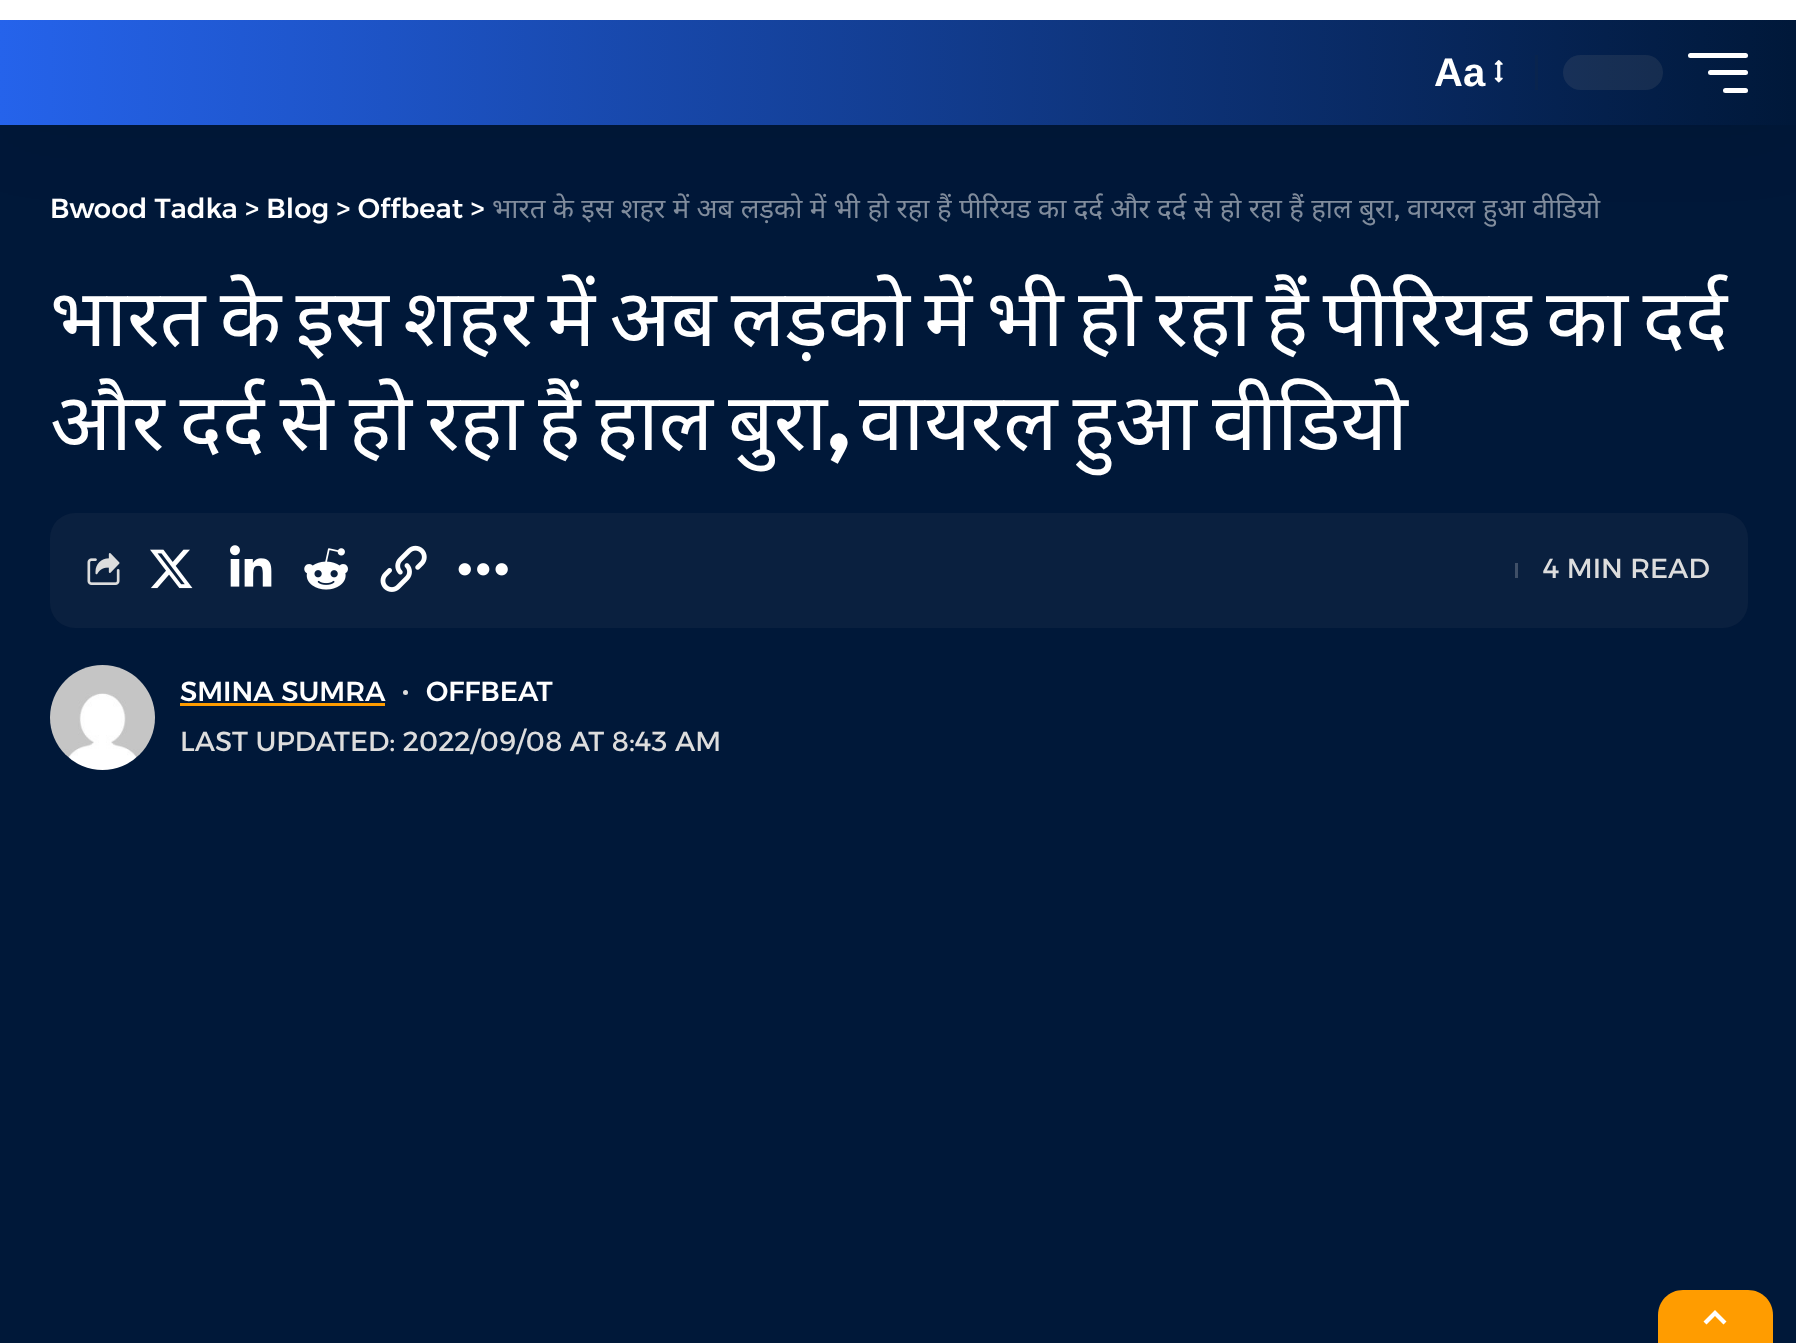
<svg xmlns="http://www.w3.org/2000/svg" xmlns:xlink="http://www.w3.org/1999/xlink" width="1796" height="1343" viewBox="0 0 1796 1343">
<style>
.cls-1{font:bold 40px Liberation Sans;fill:#ffffff}
.cls-2{font:500 27.5px Alexandria;fill:#ffffff}
.cls-3{font:27.5px Noto Sans;fill:#808c9c}
.cls-4{font:500 27.5px Alexandria;fill:#808c9c}
.cls-5{font:80px Noto Sans;fill:#ffffff}
.cls-6{font:900 80px Outfit;fill:#ffffff}
.cls-7{font:27.5px Alexandria;fill:#dddddd}
</style>
<defs>
<clipPath id="clip1"><rect x="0" y="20" width="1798" height="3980"/></clipPath>
<linearGradient id="g1" gradientUnits="userSpaceOnUse" x1="0" y1="73" x2="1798" y2="72"><stop offset="0" stop-color="#2563eb"/><stop offset="1" stop-color="#001839"/></linearGradient>
</defs>
<rect width="100%" height="100%" fill="#ffffff"/>
<rect fill="#001839" x="0" y="125" width="1796" height="1218"/>
<g clip-path="url(#clip1)">
<rect fill="#000000" fill-opacity="0.07" filter="blur(37.5px)" x="0" y="30" width="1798" height="105"/>
</g>
<rect fill="url(#g1)" x="0" y="20" width="1796" height="105"/>
<image xlink:href="image0.png" x="1494" y="60" width="9" height="23"/>
<rect fill="#09244e" x="1535" y="55" width="3" height="35"/>
<rect fill="#888888" fill-opacity="0.15" x="1563" y="55" width="100" height="35" rx="17.5"/>
<rect fill="#ffffff" x="1688" y="53" width="60" height="5" rx="2.5"/>
<rect fill="#ffffff" x="1708" y="70" width="40" height="5" rx="2.5"/>
<rect fill="#ffffff" x="1723" y="88" width="25" height="5" rx="2.5"/>
<rect fill="#0a203f" x="50" y="513" width="1698" height="115" rx="25"/>
<image xlink:href="image1.png" x="87" y="553" width="33" height="32"/>
<image xlink:href="image2.png" x="150" y="549" width="43" height="40"/>
<image xlink:href="image3.png" x="230" y="545" width="42" height="42"/>
<image xlink:href="image4.png" x="304" y="548" width="44" height="42"/>
<image xlink:href="image5.png" x="380" y="545" width="47" height="47"/>
<image xlink:href="image6.png" x="458" y="563" width="50" height="13"/>
<rect fill="#3f4f67" x="1515" y="563" width="3" height="15"/>
<image xlink:href="image7.png" x="50" y="665" width="105" height="105"/>
<rect fill="#ff9c00" x="180" y="703" width="205" height="3"/>
<circle fill="#dddddd" cx="405.5" cy="692.5" r="2.5"/>
<path fill="#ff9c00" d="M1683 1290H1748C1762 1290 1773 1301 1773 1315V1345H1658V1315C1658 1301 1669 1290 1683 1290Z"/>
<path fill="#ffffff" d="M1716.5 1311.5L1715 1310L1703.5 1321.5L1706.5 1324.5L1715 1316L1723.5 1324.5L1726.5 1321.5Z"/>
<text class="cls-1" x="1434" y="86">Aa</text>
<text class="cls-2" x="50" y="218">Bwood Tadka &gt; Blog &gt; Offbeat &gt;</text>
<text class="cls-3" x="492" y="218" word-spacing="0.25">भारत के इस शहर में अब लड़को में भी हो रहा हैं पीरियड का दर्द और दर्द से हो रहा हैं हाल बुरा</text>
<text class="cls-4" x="1394" y="218">,</text>
<text class="cls-3" x="1407" y="218" word-spacing="0.25">वायरल हुआ वीडियो</text>
<text class="cls-5"><tspan x="50" y="346" word-spacing="-6.4">भारत के इस शहर में अब लड़को में भी हो रहा हैं पीरियड का दर्द</tspan><tspan x="50" y="450" word-spacing="-5.75">और दर्द से हो रहा हैं हाल बुरा</tspan></text>
<text class="cls-6" x="827" y="450">,</text>
<text class="cls-5" x="859" y="450" word-spacing="-5.75">वायरल हुआ वीडियो</text>
<text class="cls-7" x="1543" y="578">4 MIN READ</text>
<text class="cls-2" x="180" y="701">SMINA SUMRA</text>
<text class="cls-2" x="426" y="701">OFFBEAT</text>
<text class="cls-7" x="180" y="751">LAST UPDATED: 2022/09/08 AT 8:43 AM</text>
</svg>
